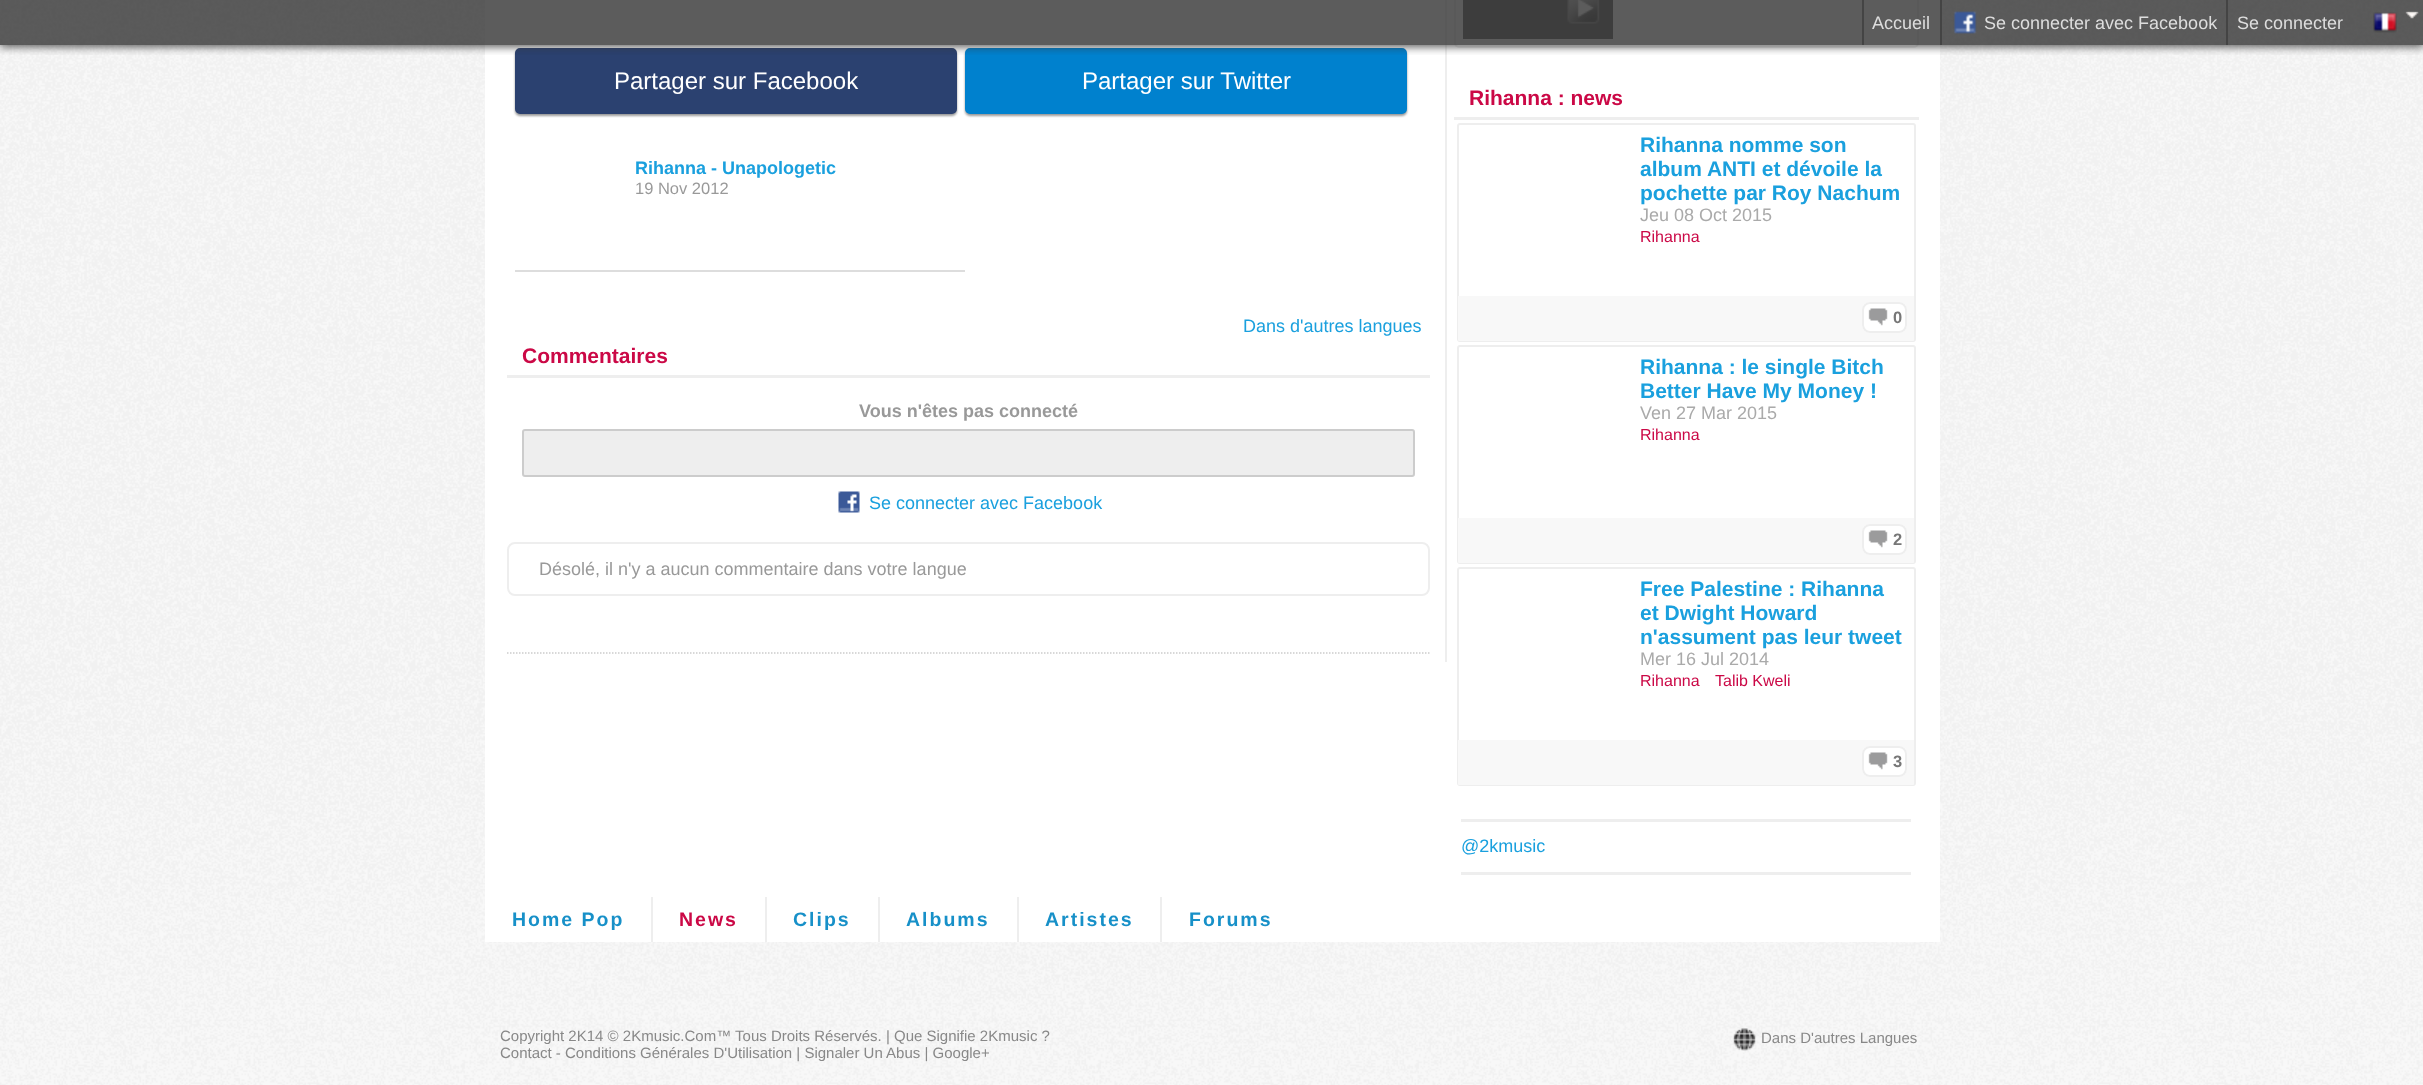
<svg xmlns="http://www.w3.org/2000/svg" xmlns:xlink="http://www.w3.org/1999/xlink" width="2423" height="1085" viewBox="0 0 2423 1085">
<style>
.cls-1{font:18px Liberation Sans;fill:#dddddd}
.cls-2{font:24px Liberation Sans;fill:#ffffff}
.cls-3{font:bold 18px Liberation Sans;fill:#1aa0de}
.cls-4{font:16.5px Liberation Sans;fill:#999999}
.cls-5{font:18px Liberation Sans;fill:#1aa0de}
.cls-6{font:bold 21px Liberation Sans;fill:#cb0846}
.cls-7{font:bold 18px Liberation Sans;fill:#999999}
.cls-8{font:18px Liberation Sans;fill:#999999}
.cls-9{font:bold 21px Liberation Sans;fill:#1aa0de}
.cls-10{font:18px Liberation Sans;fill:#aaaaaa}
.cls-11{font:16px Liberation Sans;fill:#cb0846}
.cls-12{font:bold 16.5px Liberation Sans;fill:#777777}
.cls-13{font:bold 19.5px Liberation Sans;letter-spacing:2px;fill:#1790c8}
.cls-14{font:bold 19.5px Liberation Sans;letter-spacing:2px;fill:#cb0846}
.cls-15{font:15px Liberation Sans;fill:#888888}
</style>
<defs>
<clipPath id="clip1"><rect x="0" y="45" width="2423" height="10"/></clipPath>
</defs>
<rect width="100%" height="100%" fill="#ffffff"/>
<image xlink:href="image0.png" x="0" y="0" width="2423" height="1085"/>
<rect fill="#ffffff" x="485" y="0" width="1455" height="942"/>
<rect fill="#eeeeee" x="1445" y="0" width="2" height="662"/>
<rect fill="#999999" filter="blur(1px)" x="515" y="50" width="442" height="66" rx="5"/>
<rect fill="#2b4170" stroke="#2b4170" stroke-width="2" x="516" y="49" width="440" height="64" rx="4"/>
<rect fill="#999999" filter="blur(1px)" x="965" y="50" width="442" height="66" rx="5"/>
<rect fill="#0081ce" stroke="#0081ce" stroke-width="2" x="966" y="49" width="440" height="64" rx="4"/>
<rect fill="none" stroke="#eeeeee" stroke-width="2" x="1455" y="-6" width="463" height="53" rx="4"/>
<rect fill="#666666" x="1463" y="0" width="150" height="39"/>
<image xlink:href="image5.png" x="1567" y="0" width="33" height="24"/>
<g clip-path="url(#clip1)">
<rect fill="#333333" fill-opacity="0.8" filter="blur(4px)" x="0" y="2" width="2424" height="45"/>
</g>
<rect fill="#333333" fill-opacity="0.8" x="0" y="0" width="2423" height="45"/>
<rect fill="#444444" x="1862" y="0" width="2" height="45"/>
<rect fill="#444444" x="1940" y="0" width="2" height="45"/>
<image xlink:href="image1.png" x="1953" y="11" width="24" height="23"/>
<rect fill="#444444" x="2226" y="0" width="2" height="45"/>
<image xlink:href="image2.png" x="2373" y="12" width="24" height="21"/>
<image xlink:href="image3.png" x="2405" y="11" width="14" height="8"/>
<rect fill="#dddddd" x="515" y="270" width="450" height="2"/>
<rect fill="#eeeeee" x="507" y="375" width="923" height="3"/>
<rect fill="#eeeeee" stroke="#cccccc" stroke-width="2" x="523" y="430" width="891" height="46" rx="2"/>
<image xlink:href="image4.png" x="838" y="491" width="22" height="22"/>
<rect fill="none" stroke="#eeeeee" stroke-width="2" x="508" y="543" width="921" height="52" rx="7"/>
<path fill="none" stroke="#cccccc" stroke-width="1.5" stroke-dasharray="1.5 1.5" d="M507 653H1429.5"/>
<rect fill="#eeeeee" x="1454" y="117" width="465" height="3"/>
<rect fill="none" stroke="#eeeeee" stroke-width="2" x="1458" y="124" width="457" height="217" rx="2"/>
<path fill="#f8f8f8" d="M1458 296H1914V339.5C1914 340.5 1913.5 341 1912.5 341H1459.5C1458.5 341 1458 340.5 1458 339.5Z"/>
<rect fill="#ffffff" x="1862" y="302" width="45" height="31" rx="8"/>
<image xlink:href="image6.png" x="1868" y="308" width="20" height="18"/>
<rect fill="none" stroke="#eeeeee" stroke-width="2" x="1863" y="303" width="43" height="29" rx="7"/>
<rect fill="none" stroke="#eeeeee" stroke-width="2" x="1458" y="346" width="457" height="217" rx="2"/>
<path fill="#f8f8f8" d="M1458 518H1914V561.5C1914 562.5 1913.5 563 1912.5 563H1459.5C1458.5 563 1458 562.5 1458 561.5Z"/>
<rect fill="#ffffff" x="1862" y="524" width="45" height="31" rx="8"/>
<image xlink:href="image6.png" x="1868" y="530" width="20" height="18"/>
<rect fill="none" stroke="#eeeeee" stroke-width="2" x="1863" y="525" width="43" height="29" rx="7"/>
<rect fill="none" stroke="#eeeeee" stroke-width="2" x="1458" y="568" width="457" height="217" rx="2"/>
<path fill="#f8f8f8" d="M1458 740H1914V783.5C1914 784.5 1913.5 785 1912.5 785H1459.5C1458.5 785 1458 784.5 1458 783.5Z"/>
<rect fill="#ffffff" x="1862" y="746" width="45" height="31" rx="8"/>
<image xlink:href="image6.png" x="1868" y="752" width="20" height="18"/>
<rect fill="none" stroke="#eeeeee" stroke-width="2" x="1863" y="747" width="43" height="29" rx="7"/>
<rect fill="#eeeeee" x="1461" y="819" width="450" height="3"/>
<rect fill="#eeeeee" x="1461" y="872" width="450" height="3"/>
<rect fill="#eeeeee" x="651" y="897" width="2" height="45"/>
<rect fill="#eeeeee" x="765" y="897" width="2" height="45"/>
<rect fill="#eeeeee" x="878" y="897" width="2" height="45"/>
<rect fill="#eeeeee" x="1017" y="897" width="2" height="45"/>
<rect fill="#eeeeee" x="1160" y="897" width="2" height="45"/>
<image xlink:href="image7.png" x="1733" y="1028" width="23" height="23"/>
<text class="cls-1" x="1872" y="29">Accueil</text>
<text class="cls-1" x="1984" y="29">Se connecter avec Facebook</text>
<text class="cls-1" x="2237" y="29">Se connecter</text>
<text class="cls-2" x="614" y="89">Partager sur Facebook</text>
<text class="cls-2" x="1082" y="89">Partager sur Twitter</text>
<text class="cls-3" x="635" y="174">Rihanna - Unapologetic</text>
<text class="cls-4" x="635" y="194">19 Nov 2012</text>
<text class="cls-5" x="1243" y="332">Dans d'autres langues</text>
<text class="cls-6" x="522" y="363">Commentaires</text>
<text class="cls-7" x="859" y="417">Vous n'êtes pas connecté</text>
<text class="cls-5" x="869" y="509">Se connecter avec Facebook</text>
<text class="cls-8" x="539" y="575">Désolé, il n'y a aucun commentaire dans votre langue</text>
<text class="cls-6" x="1469" y="105">Rihanna : news</text>
<text class="cls-9"><tspan x="1640" y="152">Rihanna nomme son</tspan><tspan x="1640" y="176">album ANTI et dévoile la</tspan><tspan x="1640" y="200">pochette par Roy Nachum</tspan></text>
<text class="cls-10" x="1640" y="221">Jeu 08 Oct 2015</text>
<text class="cls-11" x="1640" y="242">Rihanna</text>
<text class="cls-12" x="1893" y="323">0</text>
<text class="cls-9"><tspan x="1640" y="374">Rihanna : le single Bitch</tspan><tspan x="1640" y="398">Better Have My Money !</tspan></text>
<text class="cls-10" x="1640" y="419">Ven 27 Mar 2015</text>
<text class="cls-11" x="1640" y="440">Rihanna</text>
<text class="cls-12" x="1893" y="545">2</text>
<text class="cls-9"><tspan x="1640" y="596">Free Palestine : Rihanna</tspan><tspan x="1640" y="620">et Dwight Howard</tspan><tspan x="1640" y="644">n'assument pas leur tweet</tspan></text>
<text class="cls-10" x="1640" y="665">Mer 16 Jul 2014</text>
<text class="cls-11" x="1640" y="686">Rihanna</text>
<text class="cls-11" x="1715" y="686">Talib Kweli</text>
<text class="cls-12" x="1893" y="767">3</text>
<text class="cls-5" x="1461" y="852">@2kmusic</text>
<text class="cls-13" x="512" y="926">Home Pop</text>
<text class="cls-14" x="679" y="926">News</text>
<text class="cls-13" x="793" y="926">Clips</text>
<text class="cls-13" x="906" y="926">Albums</text>
<text class="cls-13" x="1045" y="926">Artistes</text>
<text class="cls-13" x="1189" y="926">Forums</text>
<text class="cls-15" x="500" y="1041">Copyright 2K14 © 2Kmusic.Com™ Tous Droits Réservés. | Que Signifie 2Kmusic ?</text>
<text class="cls-15" x="1761" y="1043">Dans D'autres Langues</text>
<text class="cls-15" x="500" y="1058">Contact - Conditions Générales D'Utilisation | Signaler Un Abus | Google+</text>
</svg>
